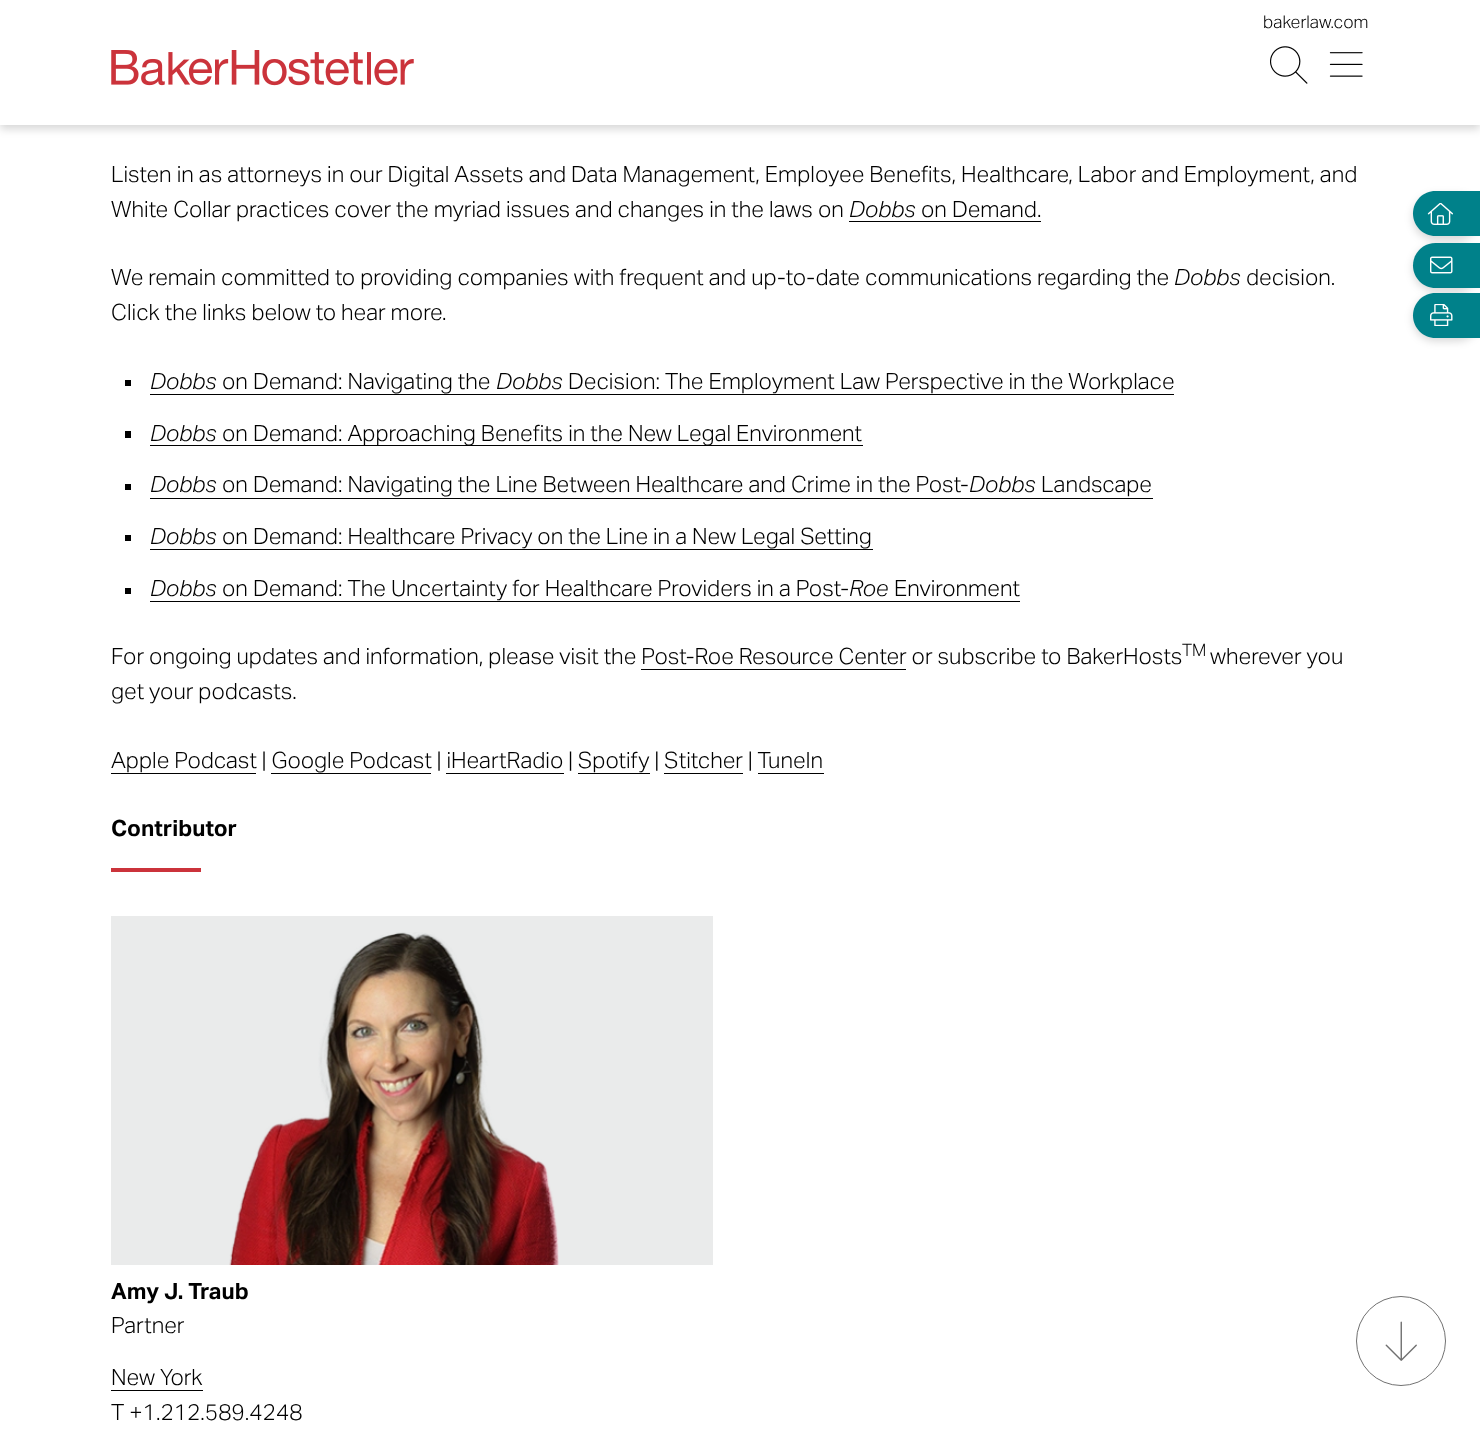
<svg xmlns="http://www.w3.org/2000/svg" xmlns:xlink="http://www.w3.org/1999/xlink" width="1480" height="1431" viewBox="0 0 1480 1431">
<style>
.cls-1{font:300 17.5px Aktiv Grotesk;fill:#000000}
.cls-2{font:300 22.5px Aktiv Grotesk;fill:#000000}
.cls-3{font:italic 300 22.5px Aktiv Grotesk;fill:#000000}
.cls-4{font:300 17px Aktiv Grotesk;fill:#000000}
.cls-5{font:bold 22.5px Aktiv Grotesk;fill:#000000}
</style>
<rect width="100%" height="100%" fill="#ffffff"/>
<rect fill="#000000" fill-opacity="0.16" filter="blur(4px)" x="0" y="4" width="1480" height="125"/>
<rect fill="#ffffff" x="0" y="0" width="1480" height="125"/>
<image xlink:href="image0.png" x="1270" y="46" width="38" height="38"/>
<image xlink:href="image1.png" x="1329" y="52" width="34" height="25"/>
<image xlink:href="image2.png" x="111" y="50" width="303" height="36"/>
<rect fill="#000000" x="849" y="221" width="192" height="1"/>
<rect fill="#000000" x="125" y="380" width="6" height="6"/>
<rect fill="#000000" x="150" y="394" width="1024" height="1"/>
<rect fill="#000000" x="125" y="431" width="6" height="7"/>
<rect fill="#000000" x="150" y="445" width="713" height="1"/>
<rect fill="#000000" x="125" y="484" width="6" height="6"/>
<rect fill="#000000" x="150" y="498" width="1003" height="1"/>
<rect fill="#000000" x="125" y="535" width="6" height="6"/>
<rect fill="#000000" x="150" y="549" width="723" height="1"/>
<rect fill="#000000" x="125" y="588" width="6" height="6"/>
<rect fill="#000000" x="150" y="601" width="870" height="1"/>
<rect fill="#000000" x="641" y="669" width="265" height="1"/>
<rect fill="#000000" x="111" y="773" width="145" height="1"/>
<rect fill="#000000" x="271" y="773" width="160" height="1"/>
<rect fill="#000000" x="446" y="773" width="118" height="1"/>
<rect fill="#000000" x="578" y="773" width="72" height="1"/>
<rect fill="#000000" x="664" y="773" width="79" height="1"/>
<rect fill="#000000" x="758" y="773" width="66" height="1"/>
<rect fill="#cb333b" x="111" y="868" width="90" height="4"/>
<rect fill="#eaebeb" x="111" y="916" width="602" height="349"/>
<image xlink:href="image3.png" x="229" y="932" width="330" height="333"/>
<rect fill="#000000" x="111" y="1390" width="92" height="1"/>
<rect fill="#000000" fill-opacity="0.16" filter="blur(4px)" x="1413" y="195" width="67" height="45" rx="22.5"/>
<path fill="#00818a" d="M1435.5 191H1480V236H1435.5C1423 236 1413 226 1413 213.5C1413 201 1423 191 1435.5 191Z"/>
<image xlink:href="image4.png" x="1427" y="203" width="26" height="22"/>
<rect fill="#000000" fill-opacity="0.16" filter="blur(4px)" x="1413" y="246" width="67" height="45" rx="22.5"/>
<path fill="#00818a" d="M1435.5 243H1480V288H1435.5C1423 288 1413 278 1413 265.5C1413 253 1423 243 1435.5 243Z"/>
<image xlink:href="image5.png" x="1430" y="256" width="23" height="18"/>
<rect fill="#000000" fill-opacity="0.16" filter="blur(4px)" x="1413" y="296" width="67" height="45" rx="22.5"/>
<path fill="#00818a" d="M1435.5 293H1480V338H1435.5C1423 338 1413 328 1413 315.5C1413 303 1423 293 1435.5 293Z"/>
<image xlink:href="image6.png" x="1430" y="304" width="23" height="22"/>
<circle fill="none" stroke="#707070" cx="1401" cy="1341" r="44.5"/>
<circle fill="#ffffff" fill-opacity="0.1" cx="1401.5" cy="1341.5" r="43.5"/>
<image xlink:href="image7.png" x="1385" y="1321" width="32" height="40"/>
<text class="cls-1" x="1263" y="28">bakerlaw.com</text>
<text class="cls-2"><tspan x="111" y="182">Listen in as attorneys in our Digital Assets and Data Management, Employee Benefits, Healthcare, Labor and Employment, and</tspan><tspan x="111" y="217">White Collar practices cover the myriad issues and changes in the laws on</tspan></text>
<text class="cls-3" x="849" y="217">Dobbs</text>
<text class="cls-2" x="921" y="217">on Demand.</text>
<text class="cls-2" x="111" y="285">We remain committed to providing companies with frequent and up-to-date communications regarding the</text>
<text class="cls-3" x="1174" y="285">Dobbs</text>
<text class="cls-2" x="1246" y="285">decision.</text>
<text class="cls-2" x="111" y="320">Click the links below to hear more.</text>
<text class="cls-3" x="150" y="389">Dobbs</text>
<text class="cls-2" x="222" y="389">on Demand: Navigating the</text>
<text class="cls-3" x="496" y="389">Dobbs</text>
<text class="cls-2" x="568" y="389">Decision: The Employment Law Perspective in the Workplace</text>
<text class="cls-3" x="150" y="441">Dobbs</text>
<text class="cls-2" x="222" y="441">on Demand: Approaching Benefits in the New Legal Environment</text>
<text class="cls-3" x="150" y="492">Dobbs</text>
<text class="cls-2" x="222" y="492">on Demand: Navigating the Line Between Healthcare and Crime in the Post-</text>
<text class="cls-3" x="969" y="492">Dobbs</text>
<text class="cls-2" x="1041" y="492">Landscape</text>
<text class="cls-3" x="150" y="544">Dobbs</text>
<text class="cls-2" x="222" y="544">on Demand: Healthcare Privacy on the Line in a New Legal Setting</text>
<text class="cls-3" x="150" y="596">Dobbs</text>
<text class="cls-2" x="222" y="596">on Demand: The Uncertainty for Healthcare Providers in a Post-</text>
<text class="cls-3" x="849" y="596">Roe</text>
<text class="cls-2" x="894" y="596">Environment</text>
<text class="cls-2" x="111" y="664">For ongoing updates and information, please visit the Post-Roe Resource Center or subscribe to BakerHosts</text>
<text class="cls-4" x="1182" y="656">TM</text>
<text class="cls-2" x="1210" y="664">wherever you</text>
<text class="cls-2" x="111" y="699">get your podcasts.</text>
<text class="cls-2" x="111" y="768">Apple Podcast | Google Podcast | iHeartRadio | Spotify | Stitcher | TuneIn</text>
<text class="cls-5" x="111" y="836">Contributor</text>
<text class="cls-5" x="111" y="1299">Amy J. Traub</text>
<text class="cls-2" x="111" y="1333">Partner</text>
<text class="cls-2"><tspan x="111" y="1385">New York</tspan><tspan x="111" y="1420">T +1.212.589.4248</tspan></text>
</svg>
